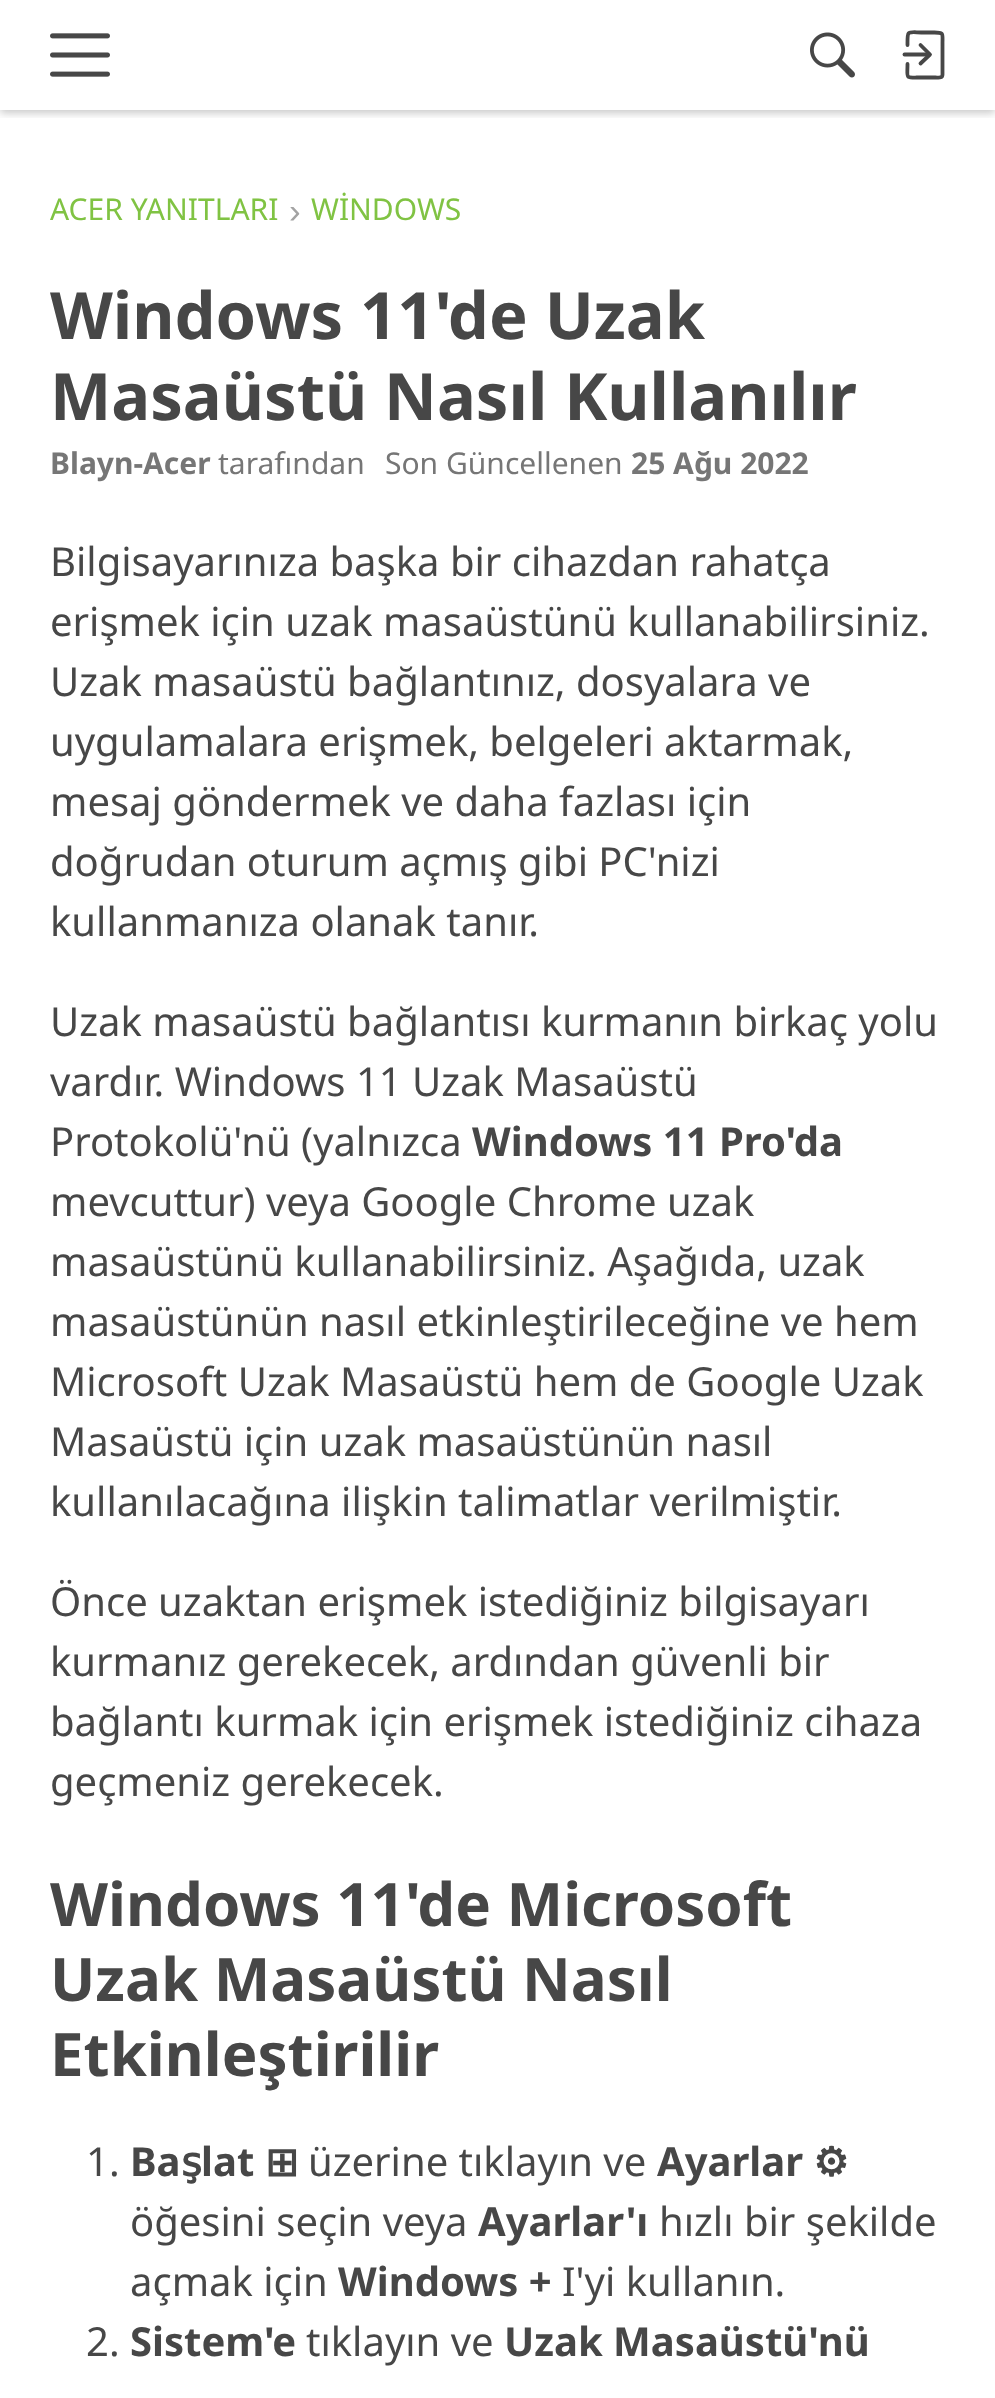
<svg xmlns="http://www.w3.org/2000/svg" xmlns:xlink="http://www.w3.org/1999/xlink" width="995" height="2398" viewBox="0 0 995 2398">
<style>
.cls-1{font:30px Noto Sans;fill:#80c343}
.cls-2{font:35px Liberation Sans;fill:#a3a3a3}
.cls-3{font:bold 65px Noto Sans;fill:#474747}
.cls-4{font:bold 30px Noto Sans;fill:#767676}
.cls-5{font:30px Noto Sans;fill:#767676}
.cls-6{font:40px Noto Sans;fill:#474747}
.cls-7{font:bold 40px Noto Sans;fill:#474747}
.cls-8{font:bold 60px Noto Sans;fill:#474747}
.cls-9{font:bold 40px DejaVu Sans;fill:#474747}
</style>
<defs>
<clipPath id="clip1"><rect x="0" y="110" width="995" height="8"/></clipPath>
</defs>
<rect width="100%" height="100%" fill="#ffffff"/>
<g clip-path="url(#clip1)">
<rect fill="#000000" fill-opacity="0.22" filter="blur(4px)" x="0" y="3" width="995" height="110"/>
</g>
<image xlink:href="image0.png" x="50" y="33" width="60" height="44"/>
<image xlink:href="image1.png" x="810" y="32" width="45" height="46"/>
<path fill="none" stroke="#474747" stroke-width="3.8" stroke-linecap="round" stroke-linejoin="round" d="M920.5 63.5L930 54.5L920.5 45"/>
<path fill="none" stroke="#474747" stroke-width="3.8" stroke-linecap="round" d="M929 54.5H904.5"/>
<path fill="none" stroke="#474747" stroke-width="3.8" stroke-linecap="round" stroke-linejoin="round" d="M907.5 45C907.5 29 906.5 32.5 925 32.5H934.5C944 32.5 942.5 33.5 942.5 43V74.5C942.5 78.5 938.5 77.5 935.5 77.5H920.5C904.5 77.5 907.5 79 907.5 64"/>
<text class="cls-1" x="50" y="220">ACER YANITLARI</text>
<text class="cls-2" x="289" y="223">›</text>
<text class="cls-1" x="311" y="220">WİNDOWS</text>
<text class="cls-3"><tspan x="50" y="339">Windows 11'de Uzak</tspan><tspan x="50" y="420">Masaüstü Nasıl Kullanılır</tspan></text>
<text class="cls-4" x="50" y="474">Blayn-Acer</text>
<text class="cls-5" x="218" y="474">tarafından</text>
<text class="cls-5" x="385" y="474">Son Güncellenen</text>
<text class="cls-4" x="631" y="474">25 Ağu 2022</text>
<text class="cls-6"><tspan x="50" y="576">Bilgisayarınıza başka bir cihazdan rahatça</tspan><tspan x="50" y="636">erişmek için uzak masaüstünü kullanabilirsiniz.</tspan><tspan x="50" y="696">Uzak masaüstü bağlantınız, dosyalara ve</tspan><tspan x="50" y="756">uygulamalara erişmek, belgeleri aktarmak,</tspan><tspan x="50" y="816">mesaj göndermek ve daha fazlası için</tspan><tspan x="50" y="876">doğrudan oturum açmış gibi PC'nizi</tspan><tspan x="50" y="936">kullanmanıza olanak tanır.</tspan></text>
<text class="cls-6"><tspan x="50" y="1036">Uzak masaüstü bağlantısı kurmanın birkaç yolu</tspan><tspan x="50" y="1096">vardır. Windows 11 Uzak Masaüstü</tspan><tspan x="50" y="1156">Protokolü'nü (yalnızca</tspan></text>
<text class="cls-7" x="472" y="1156">Windows 11 Pro'da</text>
<text class="cls-6"><tspan x="50" y="1216">mevcuttur) veya Google Chrome uzak</tspan><tspan x="50" y="1276">masaüstünü kullanabilirsiniz. Aşağıda, uzak</tspan><tspan x="50" y="1336">masaüstünün nasıl etkinleştirileceğine ve hem</tspan><tspan x="50" y="1396">Microsoft Uzak Masaüstü hem de Google Uzak</tspan><tspan x="50" y="1456">Masaüstü için uzak masaüstünün nasıl</tspan><tspan x="50" y="1516">kullanılacağına ilişkin talimatlar verilmiştir.</tspan></text>
<text class="cls-6"><tspan x="50" y="1616">Önce uzaktan erişmek istediğiniz bilgisayarı</tspan><tspan x="50" y="1676">kurmanız gerekecek, ardından güvenli bir</tspan><tspan x="50" y="1736">bağlantı kurmak için erişmek istediğiniz cihaza</tspan><tspan x="50" y="1796">geçmeniz gerekecek.</tspan></text>
<text class="cls-8"><tspan x="50" y="1926">Windows 11'de Microsoft</tspan><tspan x="50" y="2001">Uzak Masaüstü Nasıl</tspan><tspan x="50" y="2076">Etkinleştirilir</tspan></text>
<text class="cls-6" x="86" y="2176">1.</text>
<text class="cls-7" x="130" y="2176">Ba</text>
<text class="cls-9" x="181" y="2176">ş</text>
<text class="cls-7" x="201" y="2176">lat</text>
<text class="cls-9" x="265" y="2176">⊞</text>
<text class="cls-6" x="308" y="2176">üzerine tıklayın ve</text>
<text class="cls-7" x="657" y="2176">Ayarlar</text>
<text class="cls-9" x="813" y="2176">⚙</text>
<text class="cls-6" x="130" y="2236">öğesini seçin veya</text>
<text class="cls-7" x="478" y="2236">Ayarlar'ı</text>
<text class="cls-6" x="659" y="2236">hızlı bir şekilde</text>
<text class="cls-6" x="130" y="2296">açmak için</text>
<text class="cls-7" x="338" y="2296">Windows +</text>
<text class="cls-6" x="562" y="2296">I'yi kullanın.</text>
<text class="cls-6" x="86" y="2356">2.</text>
<text class="cls-7" x="130" y="2356">Sistem'e</text>
<text class="cls-6" x="306" y="2356">tıklayın ve</text>
<text class="cls-7" x="504" y="2356">Uzak Masaüstü'nü</text>
</svg>
